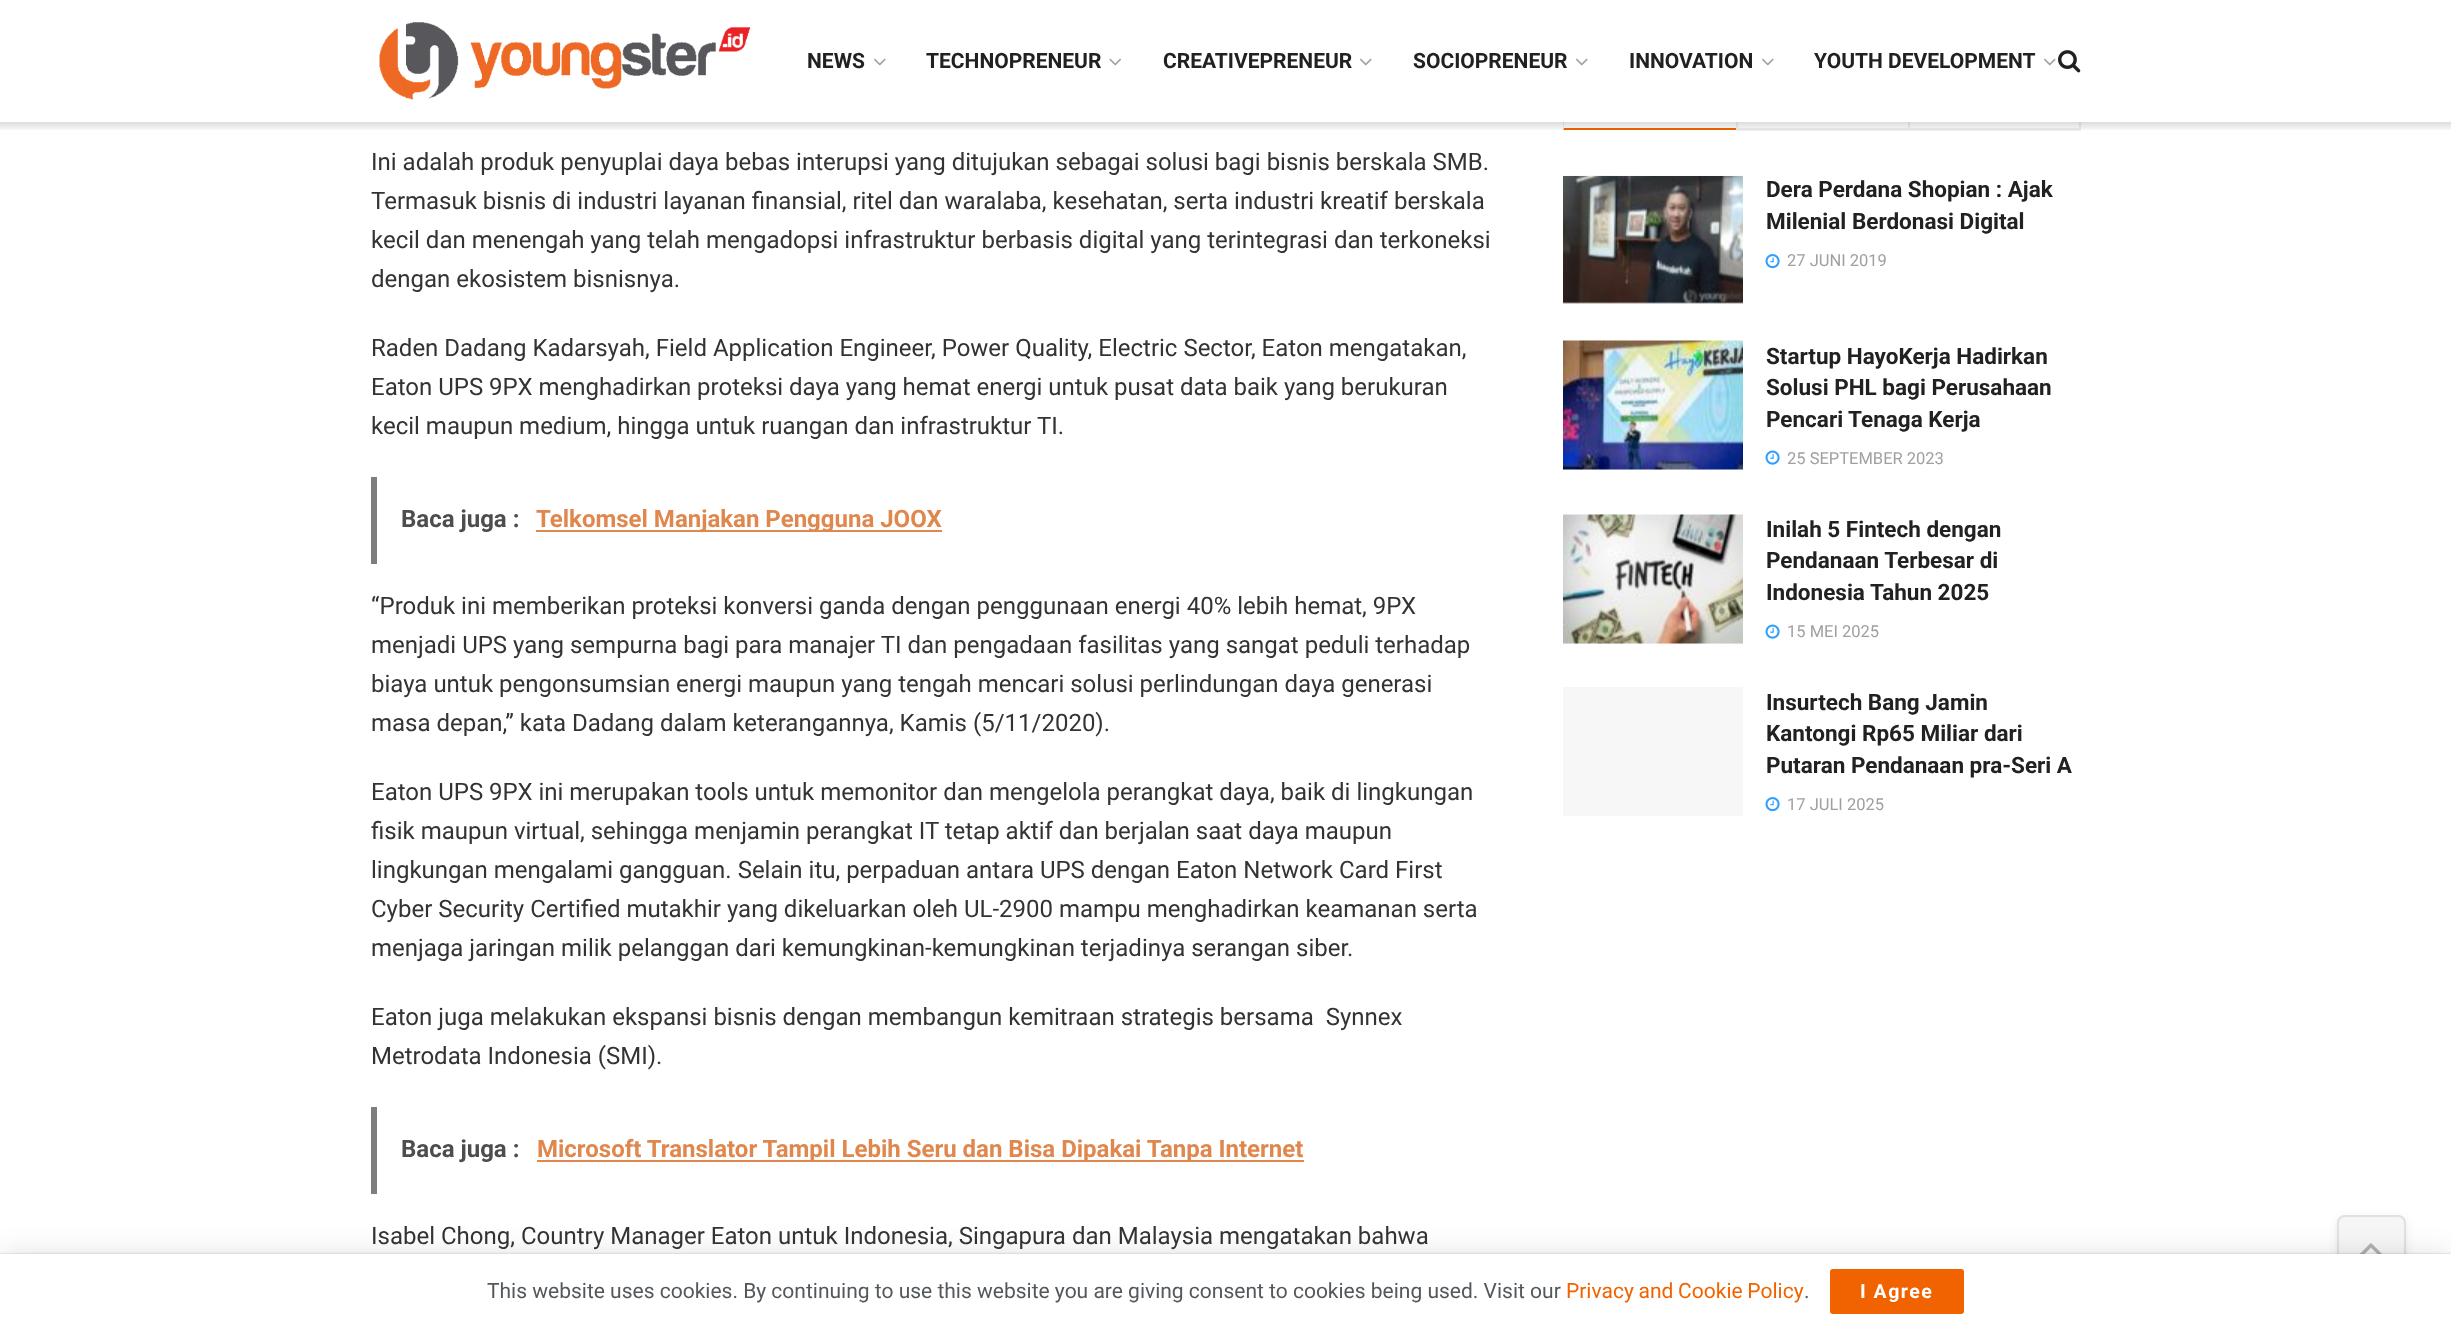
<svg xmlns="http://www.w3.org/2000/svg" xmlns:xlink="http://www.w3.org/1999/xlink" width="2451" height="1328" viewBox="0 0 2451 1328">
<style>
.cls-1{font:bold 21px Roboto;fill:#212121}
.cls-2{font:24px Roboto;fill:#333333}
.cls-3{font:bold 24px Roboto;fill:#4d4d4d}
.cls-4{font:bold 24px Roboto;fill:#e0874d}
.cls-5{font:bold 22.5px Roboto;fill:#212121}
.cls-6{font:16.5px Roboto;fill:#a0a0a0}
.cls-7{font:21px Roboto;fill:#53585c}
.cls-8{font:21px Roboto;fill:#f06300}
.cls-9{font:bold 19.5px Roboto;letter-spacing:1.5px;fill:#ffffff}
</style>
<defs>
<linearGradient id="g1" gradientUnits="userSpaceOnUse" x1="1226" y1="121" x2="1226" y2="132"><stop offset="0" stop-color="#000000" stop-opacity="0.15"/><stop offset="1" stop-color="#000000" stop-opacity="0"/></linearGradient>
<clipPath id="clip1"><path d="M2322 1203H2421V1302H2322ZM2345 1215H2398C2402.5 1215 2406 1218.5 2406 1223V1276C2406 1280.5 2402.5 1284 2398 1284H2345C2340.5 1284 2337 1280.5 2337 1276V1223C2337 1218.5 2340.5 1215 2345 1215Z" clip-rule="evenodd"/></clipPath>
</defs>
<rect width="100%" height="100%" fill="#ffffff"/>
<path fill="#f06300" d="M1736 130H1563L1564 128H1736Z"/>
<path fill="#eeeeee" d="M1563 130V72L1564 74V128Z"/>
<rect fill="#ffffff" x="1563" y="72" width="1" height="50"/>
<image xlink:href="image0.png" x="379" y="22" width="371" height="78"/>
<image xlink:href="image1.png" x="874" y="58" width="12" height="8"/>
<image xlink:href="image2.png" x="1109" y="58" width="12" height="8"/>
<image xlink:href="image1.png" x="1360" y="58" width="12" height="8"/>
<image xlink:href="image1.png" x="1576" y="58" width="12" height="8"/>
<image xlink:href="image1.png" x="1762" y="58" width="12" height="8"/>
<image xlink:href="image1.png" x="2044" y="58" width="12" height="8"/>
<image xlink:href="image3.png" x="2058" y="50" width="23" height="23"/>
<rect fill="#eeeeee" x="1736" y="128" width="172" height="3"/>
<rect fill="#eeeeee" x="1736" y="122" width="2" height="9"/>
<rect fill="#eeeeee" x="2079" y="122" width="2" height="9"/>
<rect fill="#eeeeee" x="1908" y="128" width="173" height="3"/>
<rect fill="#eeeeee" x="1908" y="122" width="2" height="9"/>
<rect fill="url(#g1)" x="0" y="122" width="2451" height="8"/>
<rect fill="#7e7e7e" x="371" y="477" width="6" height="87"/>
<rect fill="#e0874d" x="536" y="530" width="406" height="2"/>
<rect fill="#7e7e7e" x="371" y="1107" width="6" height="87"/>
<rect fill="#e0874d" x="537" y="1160" width="767" height="2"/>
<image xlink:href="image4.png" x="1563" y="175" width="180" height="128"/>
<image xlink:href="image5.png" x="1563" y="176" width="180" height="128"/>
<image xlink:href="image6.png" x="1765" y="254" width="15" height="15"/>
<rect fill="#f7f7f7" x="1563" y="469" width="180" height="1"/>
<image xlink:href="image8.png" x="1575" y="340" width="52" height="130"/>
<image xlink:href="image7.png" x="1563" y="340" width="180" height="130"/>
<image xlink:href="image9.png" x="1765" y="450" width="15" height="15"/>
<rect fill="#f7f7f7" x="1563" y="643" width="180" height="1"/>
<image xlink:href="image11.png" x="1575" y="514" width="52" height="130"/>
<image xlink:href="image10.png" x="1563" y="514" width="180" height="130"/>
<image xlink:href="image9.png" x="1765" y="624" width="15" height="15"/>
<rect fill="#f7f7f7" x="1563" y="687" width="180" height="129"/>
<image xlink:href="image6.png" x="1765" y="797" width="15" height="15"/>
<g clip-path="url(#clip1)">
<rect fill="#333333" fill-opacity="0.1" filter="blur(4.5px)" x="2337" y="1218" width="69" height="69" rx="8"/>
</g>
<rect fill="#c3c3c3" fill-opacity="0.15" x="2337" y="1215" width="69" height="69" rx="8"/>
<rect fill="none" stroke="#333333" stroke-opacity="0.11" stroke-width="2" x="2338" y="1216" width="67" height="67" rx="7"/>
<image xlink:href="image12.png" x="2360" y="1243" width="22" height="11"/>
<rect fill="#000000" fill-opacity="0.15" filter="blur(15px)" x="0" y="1257" width="2451" height="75"/>
<rect fill="#000000" fill-opacity="0.2" filter="blur(1px)" x="0" y="1254" width="2451" height="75"/>
<rect fill="#ffffff" x="0" y="1254" width="2451" height="74"/>
<rect fill="#f06300" x="1830" y="1269" width="134" height="45" rx="3"/>
<text class="cls-1" x="807" y="68">NEWS</text>
<text class="cls-1" x="926" y="68">TECHNOPRENEUR</text>
<text class="cls-1" x="1163" y="68">CREATIVEPRENEUR</text>
<text class="cls-1" x="1413" y="68">SOCIOPRENEUR</text>
<text class="cls-1" x="1629" y="68">INNOVATION</text>
<text class="cls-1" x="1814" y="68">YOUTH DEVELOPMENT</text>
<text class="cls-2"><tspan x="371" y="170">Ini adalah produk penyuplai daya bebas interupsi yang ditujukan sebagai solusi bagi bisnis berskala SMB.</tspan><tspan x="371" y="209">Termasuk bisnis di industri layanan finansial, ritel dan waralaba, kesehatan, serta industri kreatif berskala</tspan><tspan x="371" y="248">kecil dan menengah yang telah mengadopsi infrastruktur berbasis digital yang terintegrasi dan terkoneksi</tspan><tspan x="371" y="287">dengan ekosistem bisnisnya.</tspan></text>
<text class="cls-2"><tspan x="371" y="356">Raden Dadang Kadarsyah, Field Application Engineer, Power Quality, Electric Sector, Eaton mengatakan,</tspan><tspan x="371" y="395">Eaton UPS 9PX menghadirkan proteksi daya yang hemat energi untuk pusat data baik yang berukuran</tspan><tspan x="371" y="434">kecil maupun medium, hingga untuk ruangan dan infrastruktur TI.</tspan></text>
<text class="cls-3" x="401" y="527">Baca juga :</text>
<text class="cls-4" x="536" y="527">Telkomsel Manjakan Pengguna JOOX</text>
<text class="cls-2"><tspan x="371" y="614">“Produk ini memberikan proteksi konversi ganda dengan penggunaan energi 40% lebih hemat, 9PX</tspan><tspan x="371" y="653">menjadi UPS yang sempurna bagi para manajer TI dan pengadaan fasilitas yang sangat peduli terhadap</tspan><tspan x="371" y="692">biaya untuk pengonsumsian energi maupun yang tengah mencari solusi perlindungan daya generasi</tspan><tspan x="371" y="731">masa depan,” kata Dadang dalam keterangannya, Kamis (5/11/2020).</tspan></text>
<text class="cls-2"><tspan x="371" y="800">Eaton UPS 9PX ini merupakan tools untuk memonitor dan mengelola perangkat daya, baik di lingkungan</tspan><tspan x="371" y="839">fisik maupun virtual, sehingga menjamin perangkat IT tetap aktif dan berjalan saat daya maupun</tspan><tspan x="371" y="878">lingkungan mengalami gangguan. Selain itu, perpaduan antara UPS dengan Eaton Network Card First</tspan><tspan x="371" y="917">Cyber Security Certified mutakhir yang dikeluarkan oleh UL-2900 mampu menghadirkan keamanan serta</tspan><tspan x="371" y="956">menjaga jaringan milik pelanggan dari kemungkinan-kemungkinan terjadinya serangan siber.</tspan></text>
<text class="cls-2" xml:space="preserve"><tspan x="371" y="1025">Eaton juga melakukan ekspansi bisnis dengan membangun kemitraan strategis bersama  Synnex</tspan><tspan x="371" y="1064">Metrodata Indonesia (SMI).</tspan></text>
<text class="cls-3" x="401" y="1157">Baca juga :</text>
<text class="cls-4" x="537" y="1157">Microsoft Translator Tampil Lebih Seru dan Bisa Dipakai Tanpa Internet</text>
<text class="cls-2" x="371" y="1244">Isabel Chong, Country Manager Eaton untuk Indonesia, Singapura dan Malaysia mengatakan bahwa</text>
<text class="cls-5"><tspan x="1766" y="197">Dera Perdana Shopian : Ajak</tspan><tspan x="1766" y="229">Milenial Berdonasi Digital</tspan></text>
<text class="cls-6" x="1787" y="266">27 JUNI 2019</text>
<text class="cls-5"><tspan x="1766" y="364">Startup HayoKerja Hadirkan</tspan><tspan x="1766" y="395">Solusi PHL bagi Perusahaan</tspan><tspan x="1766" y="427">Pencari Tenaga Kerja</tspan></text>
<text class="cls-6" x="1787" y="464">25 SEPTEMBER 2023</text>
<text class="cls-5"><tspan x="1766" y="537">Inilah 5 Fintech dengan</tspan><tspan x="1766" y="568">Pendanaan Terbesar di</tspan><tspan x="1766" y="600">Indonesia Tahun 2025</tspan></text>
<text class="cls-6" x="1787" y="637">15 MEI 2025</text>
<text class="cls-5"><tspan x="1766" y="710">Insurtech Bang Jamin</tspan><tspan x="1766" y="741">Kantongi Rp65 Miliar dari</tspan><tspan x="1766" y="773">Putaran Pendanaan pra-Seri A</tspan></text>
<text class="cls-6" x="1787" y="810">17 JULI 2025</text>
<text class="cls-7" x="487" y="1298">This website uses cookies. By continuing to use this website you are giving consent to cookies being used. Visit our</text>
<text class="cls-8" x="1566" y="1298" word-spacing="-0.5">Privacy and Cookie Policy</text>
<text class="cls-7" x="1804" y="1298">.</text>
<text class="cls-9" x="1860" y="1298">I Agree</text>
</svg>
